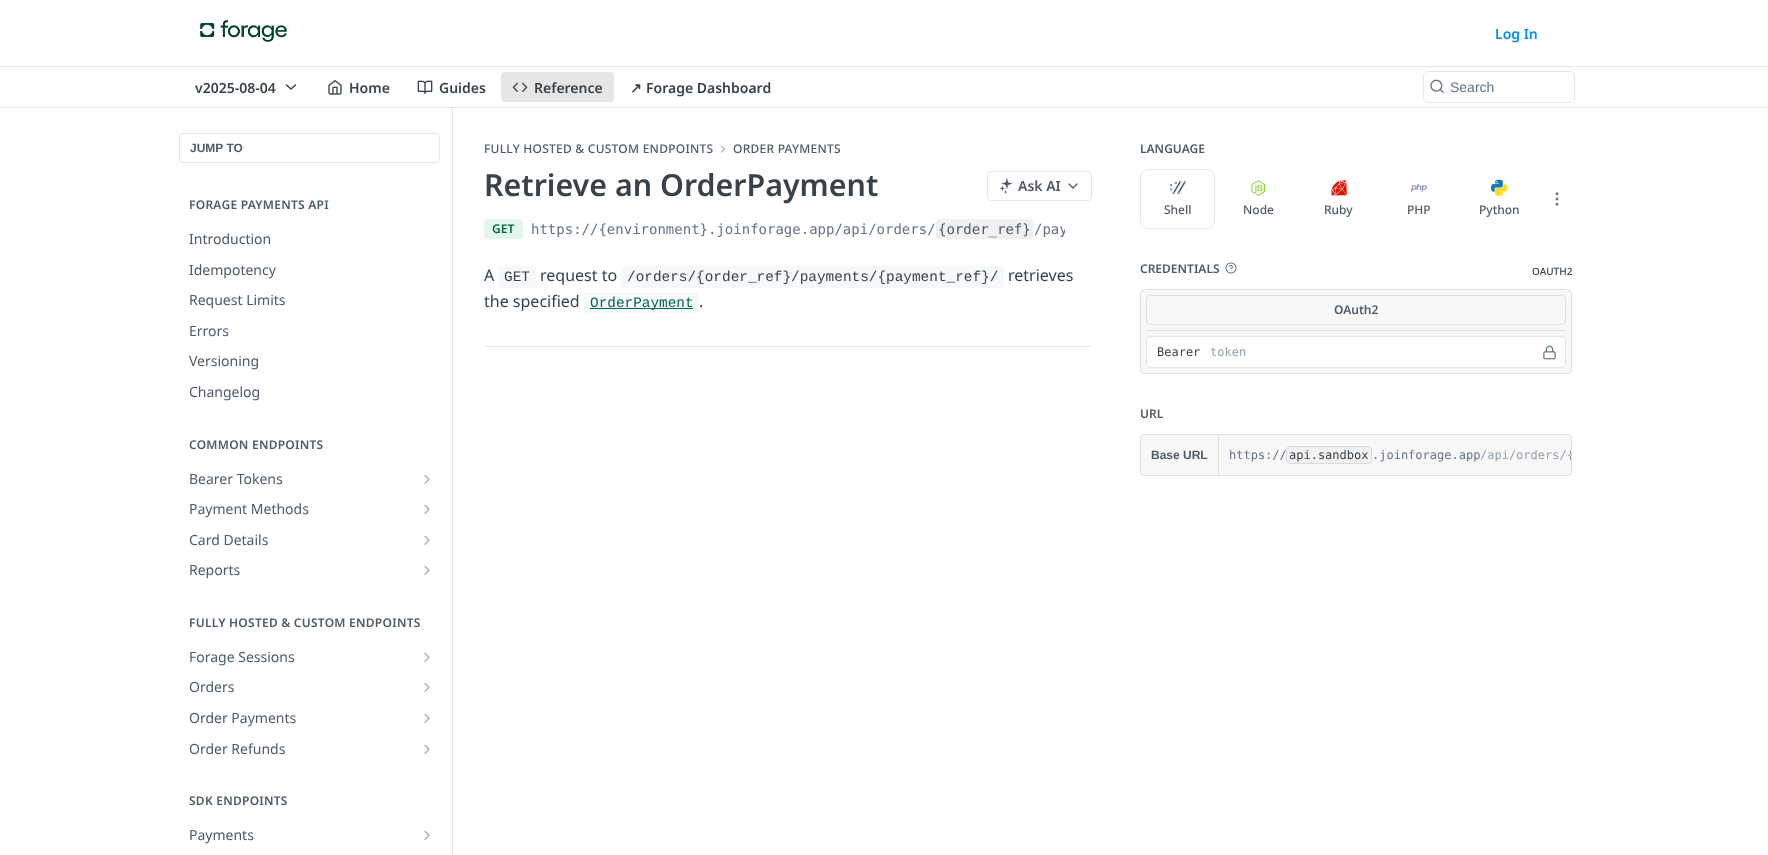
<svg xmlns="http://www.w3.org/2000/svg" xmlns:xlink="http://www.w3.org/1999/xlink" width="1768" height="855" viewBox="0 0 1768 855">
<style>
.cls-1{font:600 14px Noto Sans;fill:#018ef5}
.cls-2{font:600 14px Noto Sans;fill:#384248}
.cls-3{font:bold 14px DejaVu Sans;fill:#384248}
.cls-4{font:14px Liberation Sans;fill:#637288}
.cls-5{font:bold 12px Liberation Sans;fill:#4f5a66}
.cls-6{font:600 12px Noto Sans;letter-spacing:0.25px;fill:#4f5a66}
.cls-7{font:14px Noto Sans;fill:#4f5a66}
.cls-8{font:500 12px Noto Sans;letter-spacing:0.25px;fill:#4f5a66}
.cls-9{font:600 30.4px Noto Sans;fill:#384248}
.cls-10{font:600 14px Noto Sans;fill:#4f5a66}
.cls-11{font:600 12px Noto Sans;fill:#00683a}
.cls-12{font:14px DejaVu Sans Mono;fill:#637288}
.cls-13{font:14px DejaVu Sans Mono;fill:#4f5a66}
.cls-14{font:16px Noto Sans;fill:#384248}
.cls-15{font:14.4px Liberation Mono;fill:#384248}
.cls-16{font:14.4px Liberation Mono;fill:#026648}
.cls-17{font:600 12px Noto Sans;fill:#4f5a66}
.cls-18{font:500 12px Noto Sans;fill:#4f5a66}
.cls-19{font:500 10px Noto Sans;fill:#384248}
.cls-20{font:12px DejaVu Sans Mono;fill:#384248}
.cls-21{font:12px DejaVu Sans Mono;fill:#939eae}
.cls-22{font:12px DejaVu Sans Mono;fill:#637288}
</style>
<defs>
<clipPath id="clip1"><rect x="531" y="219" width="534" height="20"/></clipPath>
<clipPath id="clip2"><path d="M1219 435H1567C1569 435 1571 437 1571 439V471C1571 473 1569 475 1567 475H1219Z"/></clipPath>
</defs>
<rect width="100%" height="100%" fill="#ffffff"/>
<rect fill="#e6e6e6" x="0" y="107" width="1768" height="1"/>
<rect fill="#e6e6e6" x="0" y="66" width="1768" height="1"/>
<image xlink:href="image0.png" x="200" y="20" width="87" height="22"/>
<path fill="none" stroke="#384248" stroke-width="1.5" stroke-linecap="round" stroke-linejoin="round" d="M286.5 85L291 89L295.5 85"/>
<image xlink:href="image1.png" x="328" y="80" width="14" height="15"/>
<image xlink:href="image2.png" x="417" y="80" width="16" height="14"/>
<rect fill="#e6e6e6" x="501" y="72" width="113" height="30" rx="4"/>
<image xlink:href="image3.png" x="512" y="82" width="16" height="10"/>
<rect fill="none" stroke="#e6e6e6" x="1423.5" y="71.5" width="151" height="31" rx="4.5"/>
<rect fill="#ffffff" x="1424" y="72" width="150" height="30" rx="4"/>
<image xlink:href="image4.png" x="1430" y="79" width="14" height="14"/>
<rect fill="#e6e6e6" x="452" y="107" width="1" height="748"/>
<rect fill="#cfcfcf" x="452" y="107" width="1" height="1"/>
<rect fill="none" stroke="#e6e6e6" x="179.5" y="133.5" width="260" height="29" rx="3.5"/>
<image xlink:href="image5.png" x="424" y="474" width="6" height="10"/>
<image xlink:href="image5.png" x="424" y="504" width="6" height="10"/>
<image xlink:href="image5.png" x="424" y="535" width="6" height="10"/>
<image xlink:href="image5.png" x="424" y="565" width="6" height="10"/>
<image xlink:href="image5.png" x="424" y="652" width="6" height="10"/>
<image xlink:href="image5.png" x="424" y="682" width="6" height="10"/>
<image xlink:href="image5.png" x="424" y="713" width="6" height="10"/>
<image xlink:href="image5.png" x="424" y="744" width="6" height="10"/>
<image xlink:href="image5.png" x="424" y="830" width="6" height="10"/>
<rect fill="#e6e6e6" x="484" y="346" width="608" height="1"/>
<path fill="none" stroke="#637288" stroke-linecap="round" stroke-linejoin="round" d="M721.5 152L724.5 149L721.5 146"/>
<rect fill="none" stroke="#e6e6e6" x="987.5" y="171.5" width="104" height="29" rx="3.5"/>
<image xlink:href="image6.png" x="999" y="178" width="14" height="16"/>
<path fill="none" stroke="#4f5a66" stroke-width="1.3" stroke-linecap="round" stroke-linejoin="round" d="M1069 184L1073 188L1077 184"/>
<rect fill="#e1f7ec" x="484" y="219" width="39" height="20" rx="4"/>
<rect fill="#f0f0f0" x="936" y="219" width="97" height="20" rx="4"/>
<rect fill="#f6f8fa" x="498" y="266" width="38" height="22" rx="3"/>
<rect fill="#f6f8fa" x="621" y="266" width="383" height="22" rx="3"/>
<rect fill="#f6f8fa" x="584" y="292" width="115" height="21" rx="3"/>
<rect fill="#026648" x="590" y="308" width="103" height="1"/>
<image xlink:href="image7.png" x="1555" y="192" width="4" height="14"/>
<rect fill="none" stroke="#e6e6e6" x="1140.5" y="169.5" width="74" height="59" rx="7.5"/>
<image xlink:href="image8.png" x="1170" y="180" width="16" height="15"/>
<image xlink:href="image9.png" x="1251" y="180" width="14" height="16"/>
<image xlink:href="image10.png" x="1331" y="179" width="16" height="17"/>
<image xlink:href="image11.png" x="1411" y="183" width="16" height="9"/>
<image xlink:href="image12.png" x="1491" y="179" width="12" height="13"/>
<image xlink:href="image13.png" x="1495" y="183" width="12" height="13"/>
<image xlink:href="image14.png" x="1225" y="262" width="12" height="12"/>
<rect fill="#f8f8f8" stroke="#dfdfdf" x="1140.5" y="289.5" width="431" height="84" rx="3.5"/>
<rect fill="#dfdfdf" x="1146" y="330" width="420" height="1"/>
<rect fill="none" stroke="#dfdfdf" x="1146.5" y="295.5" width="419" height="29" rx="3.5"/>
<rect fill="#ffffff" stroke="#e5e5e5" x="1146.5" y="336.5" width="419" height="31" rx="3.5"/>
<image xlink:href="image15.png" x="1543" y="345" width="13" height="15"/>
<rect fill="#f8f8f8" stroke="#dfdfdf" x="1140.5" y="434.5" width="431" height="41" rx="3.5"/>
<rect fill="#dfdfdf" x="1218" y="435" width="1" height="40"/>
<rect fill="#f2f2f2" stroke="#dadada" x="1286.5" y="446.5" width="85" height="17" rx="3.5"/>
<text class="cls-1" x="1495" y="39">Log In</text>
<text class="cls-2" x="195" y="93">v2025-08-04</text>
<text class="cls-2" x="349" y="93">Home</text>
<text class="cls-2" x="439" y="93">Guides</text>
<text class="cls-2" x="534" y="93">Reference</text>
<text class="cls-3" x="630" y="93">↗</text>
<text class="cls-2" x="646" y="93">Forage Dashboard</text>
<text class="cls-4" x="1450" y="92">Search</text>
<text class="cls-5" x="190" y="152">JUMP TO</text>
<text class="cls-6" x="189" y="209">FORAGE PAYMENTS API</text>
<text class="cls-7" x="189" y="244">Introduction</text>
<text class="cls-7" x="189" y="275">Idempotency</text>
<text class="cls-7" x="189" y="305">Request Limits</text>
<text class="cls-7" x="189" y="336">Errors</text>
<text class="cls-7" x="189" y="366">Versioning</text>
<text class="cls-7" x="189" y="397">Changelog</text>
<text class="cls-6" x="189" y="449">COMMON ENDPOINTS</text>
<text class="cls-7" x="189" y="484">Bearer Tokens</text>
<text class="cls-7" x="189" y="514">Payment Methods</text>
<text class="cls-7" x="189" y="545">Card Details</text>
<text class="cls-7" x="189" y="575">Reports</text>
<text class="cls-6" x="189" y="627">FULLY HOSTED &amp; CUSTOM ENDPOINTS</text>
<text class="cls-7" x="189" y="662">Forage Sessions</text>
<text class="cls-7" x="189" y="692">Orders</text>
<text class="cls-7" x="189" y="723">Order Payments</text>
<text class="cls-7" x="189" y="754">Order Refunds</text>
<text class="cls-6" x="189" y="805">SDK ENDPOINTS</text>
<text class="cls-7" x="189" y="840">Payments</text>
<text class="cls-8" x="484" y="153">FULLY HOSTED &amp; CUSTOM ENDPOINTS</text>
<text class="cls-8" x="733" y="153">ORDER PAYMENTS</text>
<text class="cls-9" x="484" y="196">Retrieve an OrderPayment</text>
<text class="cls-10" x="1018" y="191">Ask AI</text>
<text class="cls-11" x="492" y="233">GET</text>
<text class="cls-12" x="531" y="234">https://{environment}.joinforage.app/api/orders/</text>
<text class="cls-13" x="938" y="234">{order_ref}</text>
<g clip-path="url(#clip1)">
<text class="cls-12" x="1034" y="234">/pay</text>
</g>
<text class="cls-14" x="484" y="281">A</text>
<text class="cls-15" x="504" y="281">GET</text>
<text class="cls-14" x="540" y="281">request to</text>
<text class="cls-15" x="627" y="281">/orders/{order_ref}/payments/{payment_ref}/</text>
<text class="cls-14" x="1008" y="281">retrieves</text>
<text class="cls-14" x="484" y="307">the specified</text>
<text class="cls-16" x="590" y="307">OrderPayment</text>
<text class="cls-14" x="699" y="307">.</text>
<text class="cls-17" x="1140" y="153">LANGUAGE</text>
<text class="cls-18" x="1164" y="214">Shell</text>
<text class="cls-18" x="1243" y="214">Node</text>
<text class="cls-18" x="1324" y="214">Ruby</text>
<text class="cls-18" x="1407" y="214">PHP</text>
<text class="cls-18" x="1479" y="214">Python</text>
<text class="cls-17" x="1140" y="273">CREDENTIALS</text>
<text class="cls-19" x="1532" y="275">OAUTH2</text>
<text class="cls-17" x="1334" y="314">OAuth2</text>
<text class="cls-20" x="1157" y="356">Bearer</text>
<text class="cls-21" x="1210" y="356">token</text>
<text class="cls-17" x="1140" y="418">URL</text>
<text class="cls-5" x="1151" y="459">Base URL</text>
<text class="cls-22" x="1229" y="459">https://</text>
<text class="cls-20" x="1289" y="459">api.sandbox</text>
<text class="cls-22" x="1372" y="459">.joinforage.app</text>
<g clip-path="url(#clip2)">
<text class="cls-21" x="1480" y="459">/api/orders/{</text>
</g>
</svg>
